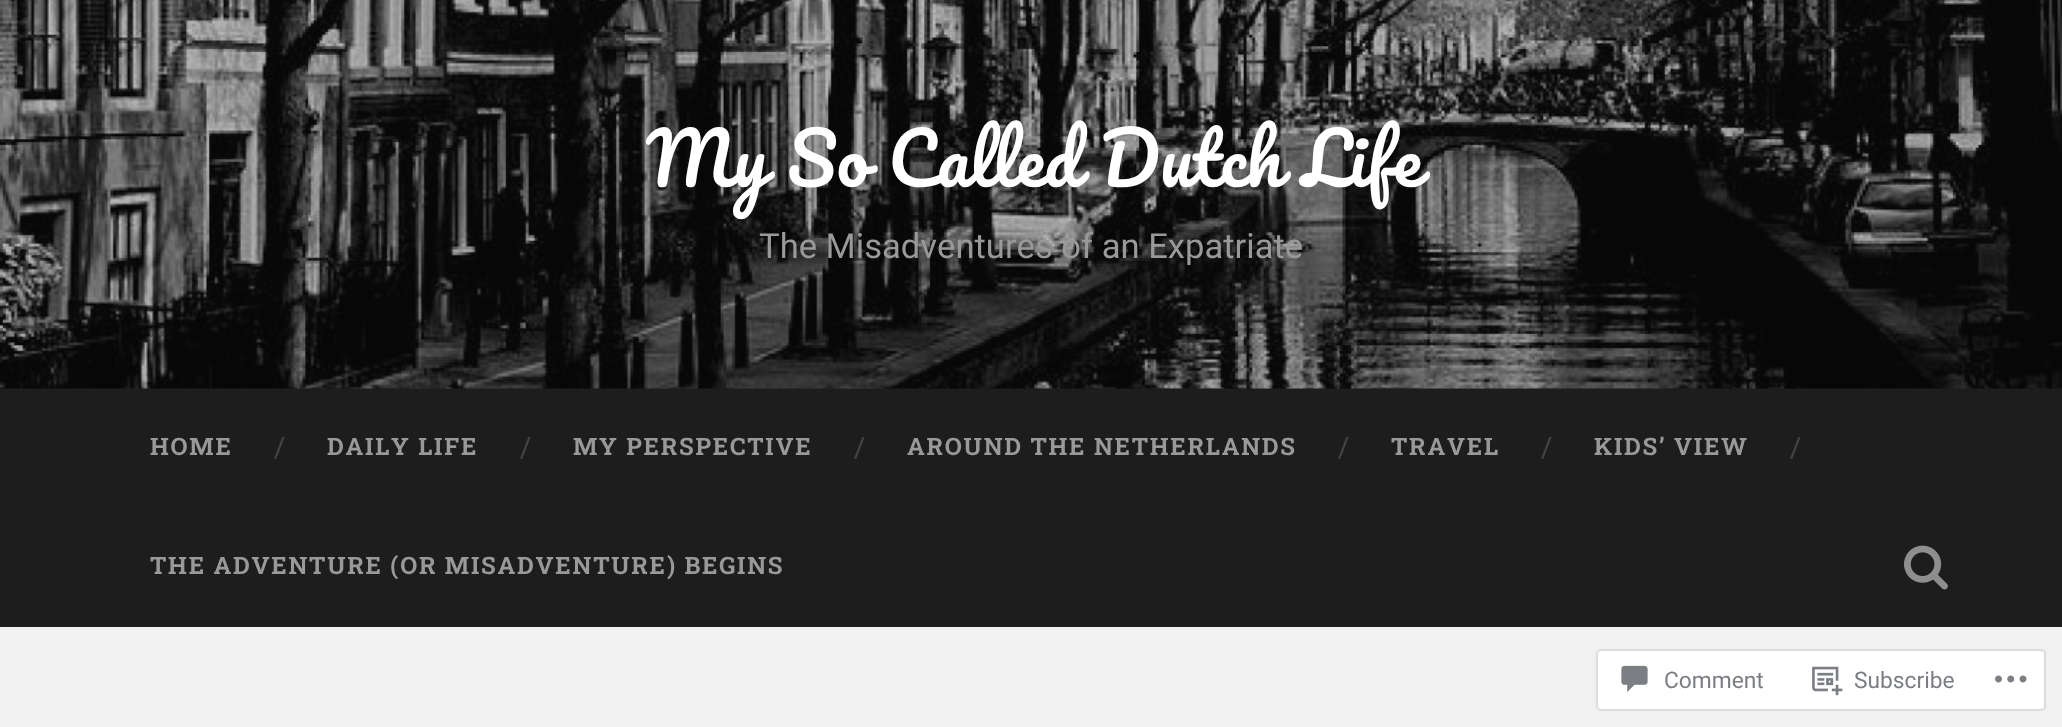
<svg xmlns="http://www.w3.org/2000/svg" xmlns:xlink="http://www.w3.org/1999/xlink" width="2062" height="727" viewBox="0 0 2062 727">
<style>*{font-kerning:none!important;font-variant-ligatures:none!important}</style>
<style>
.cls-1{font:70.9px Pacifico;fill:#ffffff}
.cls-2{font:34.6px Roboto;fill:#999999}
.cls-3{font:bold 24.1px Roboto Slab;letter-spacing:1.75px;fill:#999999}
.cls-4{font:28px Roboto Slab;fill:#444444}
.cls-5{font:22.75px Roboto;fill:#7a7e84}
</style>
<rect width="100%" height="100%" fill="#f1f1f1"/>
<rect fill="#1d1d1d" x="0" y="388" width="2062" height="239"/>
<image xlink:href="image0.png" x="0" y="0" width="2062" height="389"/>
<image xlink:href="image1.png" x="1904" y="545" width="44" height="45"/>
<rect fill="#ffffff" stroke="#dcdcde" stroke-width="2" x="1597" y="650" width="448" height="60" rx="4"/>
<image xlink:href="image2.png" x="1621" y="665" width="27" height="27"/>
<image xlink:href="image3.png" x="1812" y="666" width="31" height="30"/>
<image xlink:href="image4.png" x="1995" y="675" width="32" height="8"/>
<text class="cls-1" x="646" y="187" word-spacing="1">My So Called Dutch Life</text>
<text class="cls-2" x="759" y="258">The Misadventures of an Expatriate</text>
<text class="cls-3" x="150" y="455">HOME</text>
<text class="cls-4" x="274" y="457">/</text>
<text class="cls-3" x="327" y="455">DAILY LIFE</text>
<text class="cls-4" x="520" y="457">/</text>
<text class="cls-3" x="573" y="455">MY PERSPECTIVE</text>
<text class="cls-4" x="854" y="457">/</text>
<text class="cls-3" x="907" y="455">AROUND THE NETHERLANDS</text>
<text class="cls-4" x="1338" y="457">/</text>
<text class="cls-3" x="1391" y="455">TRAVEL</text>
<text class="cls-4" x="1541" y="457">/</text>
<text class="cls-3" x="1594" y="455">KIDS’ VIEW</text>
<text class="cls-4" x="1790" y="457">/</text>
<text class="cls-3" x="150" y="574">THE ADVENTURE (OR MISADVENTURE) BEGINS</text>
<text class="cls-5" x="1664" y="688">Comment</text>
<text class="cls-5" x="1854" y="688">Subscribe</text>
</svg>
